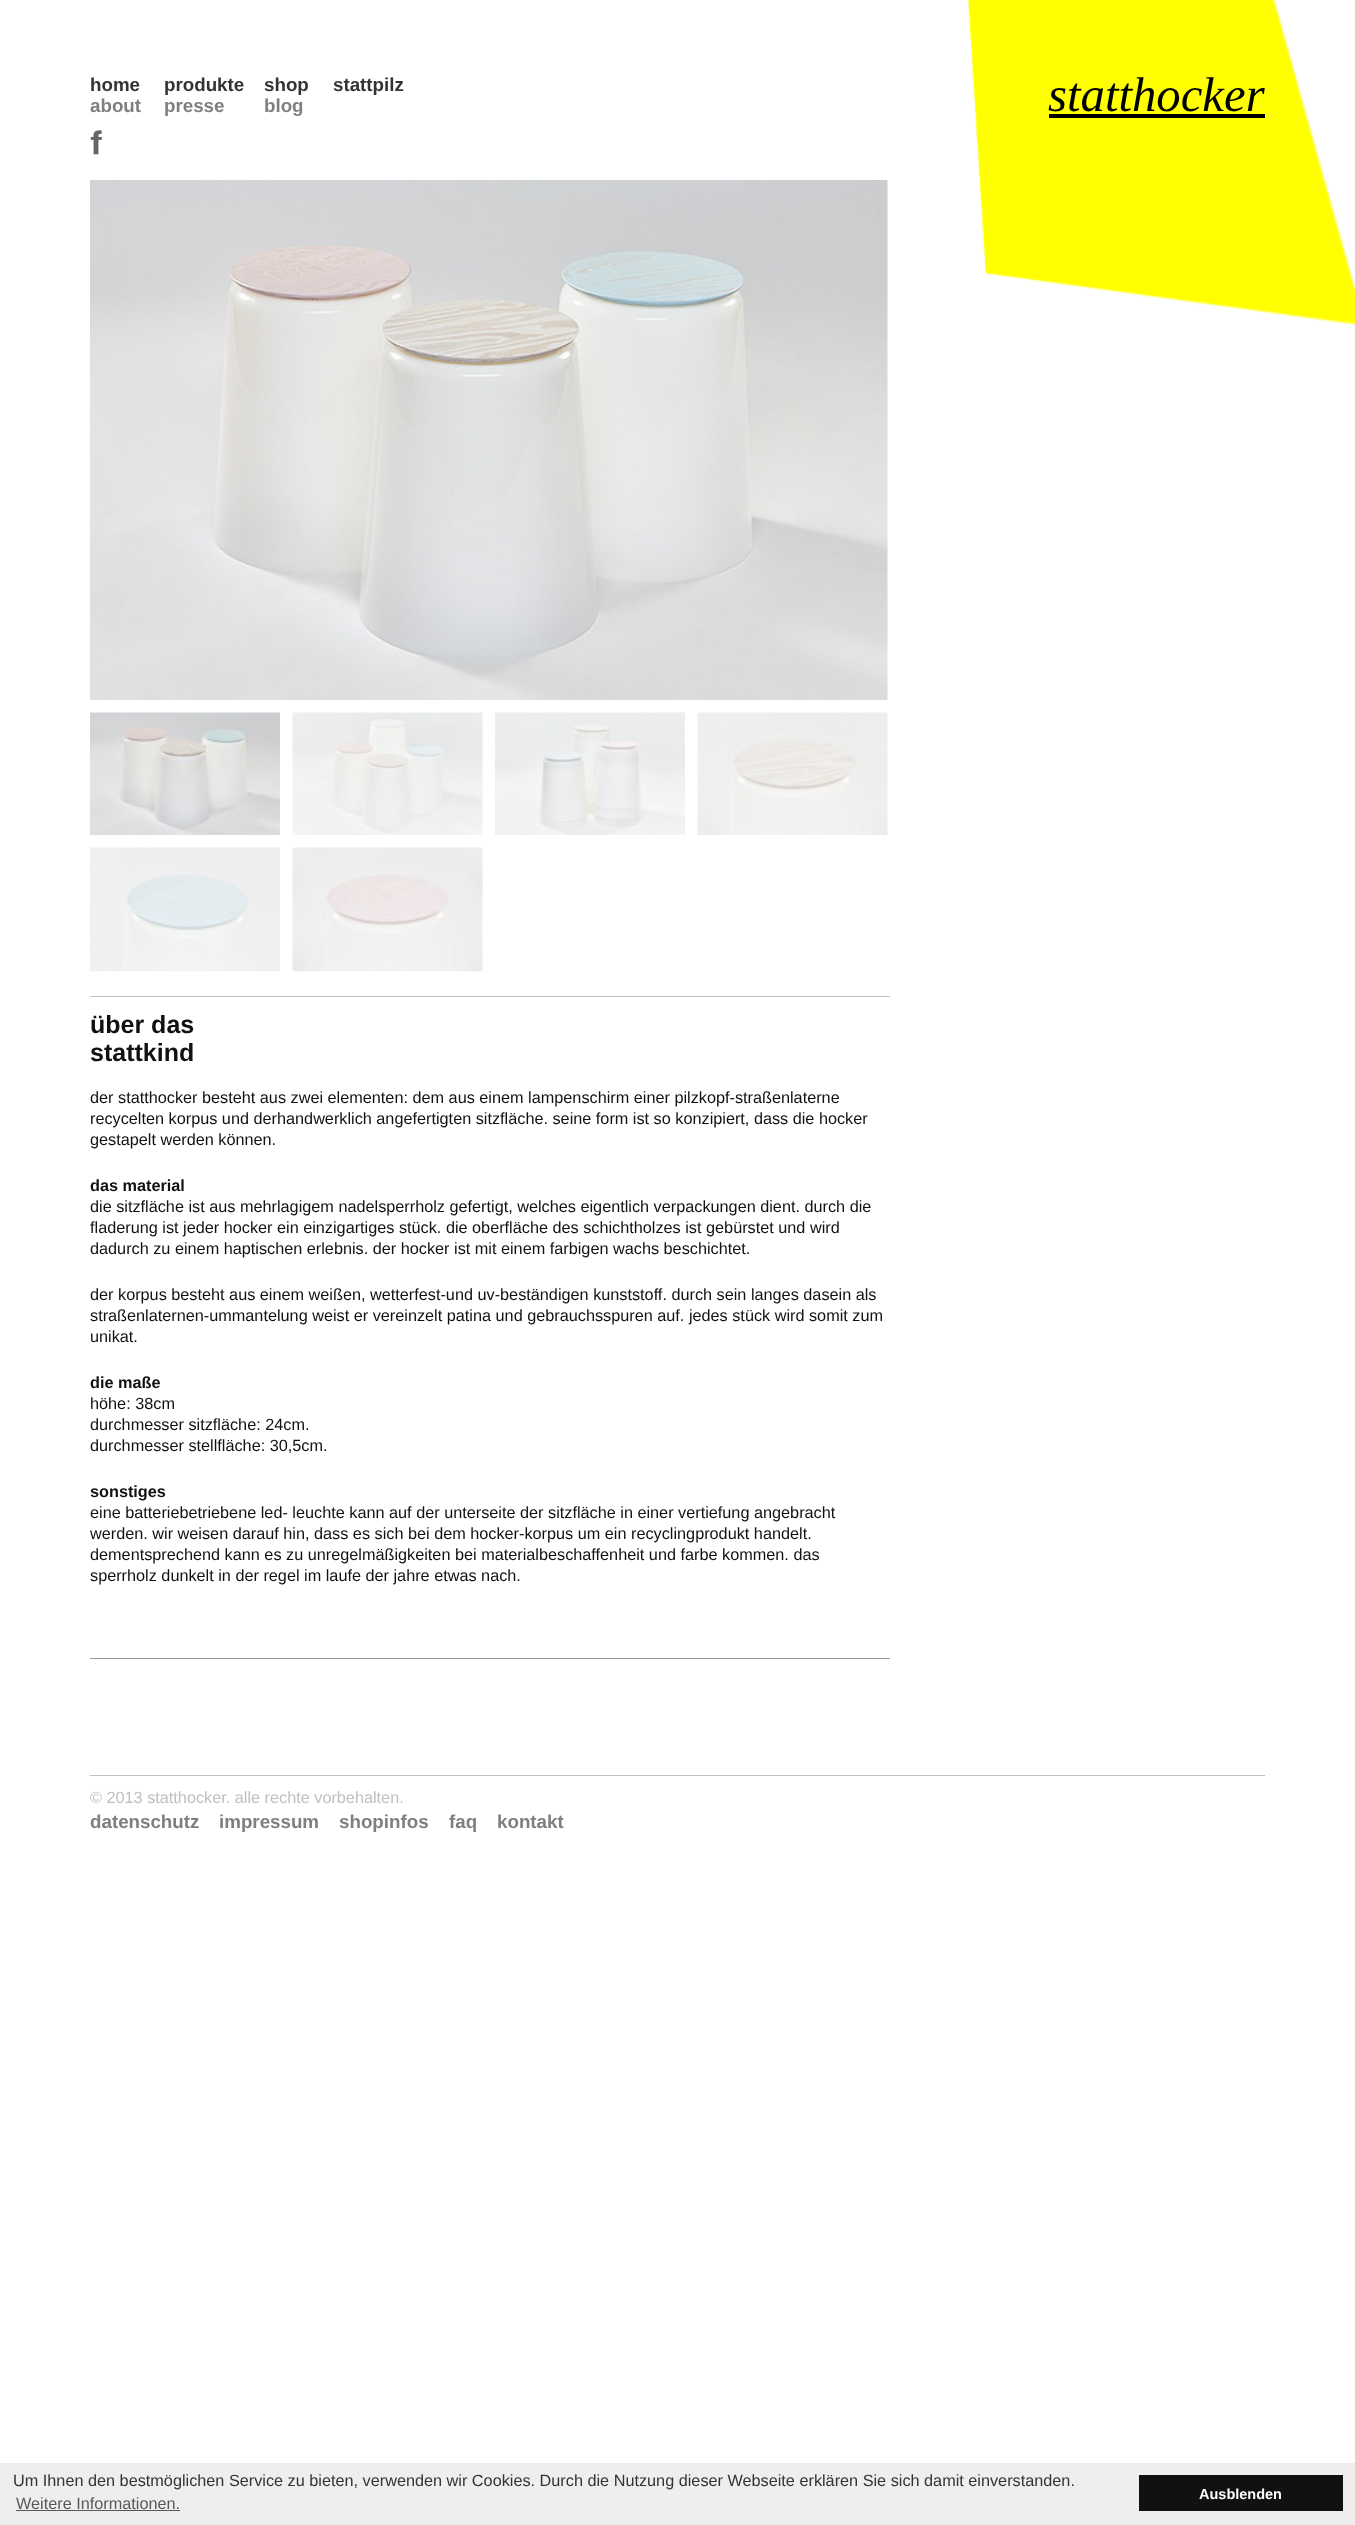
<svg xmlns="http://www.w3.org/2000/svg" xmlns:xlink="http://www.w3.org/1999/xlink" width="1355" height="2525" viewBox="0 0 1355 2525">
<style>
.cls-1{font:bold 18.75px Liberation Sans;fill:#333333}
.cls-2{font:bold 18.75px Liberation Sans;fill:#7f7f7f}
.cls-3{font:italic 48.75px Liberation Serif;fill:#000000}
.cls-4{font:bold 25px Liberation Sans;fill:#111111}
.cls-5{font:16.25px Liberation Sans;fill:#111111}
.cls-6{font:bold 16.25px Liberation Sans;fill:#111111}
.cls-7{font:16.25px Liberation Sans;fill:#bfbfbf}
.cls-8{font:16.25px Liberation Sans;fill:#333333}
.cls-9{font:16.25px Liberation Sans;fill:#585858}
.cls-10{font:bold 14.5px Liberation Sans;fill:#ffffff}
</style>
<rect width="100%" height="100%" fill="#ffffff"/>
<image xlink:href="image0.png" x="967" y="0" width="388" height="326"/>
<rect fill="#000000" x="1049" y="114" width="216" height="4"/>
<image xlink:href="image1.png" x="90" y="130" width="12" height="25"/>
<rect fill="#bfbfbf" x="90" y="996" width="800" height="1"/>
<image xlink:href="image2.png" x="90" y="180" width="798" height="520"/>
<image xlink:href="image3.png" x="90" y="712" width="190" height="123"/>
<image xlink:href="image4.png" x="292" y="712" width="191" height="123"/>
<image xlink:href="image5.png" x="495" y="712" width="190" height="123"/>
<image xlink:href="image6.png" x="697" y="712" width="191" height="123"/>
<image xlink:href="image7.png" x="90" y="847" width="190" height="125"/>
<image xlink:href="image8.png" x="292" y="847" width="191" height="125"/>
<rect fill="#999999" x="90" y="1658" width="800" height="1"/>
<rect fill="#bfbfbf" x="90" y="1775" width="1175" height="1"/>
<rect fill="#eeeeee" x="0" y="2463" width="1355" height="62"/>
<rect fill="#585858" x="16" y="2510" width="164" height="1"/>
<rect fill="#111111" x="1139" y="2475" width="204" height="36"/>
<text class="cls-1" x="90" y="91">home</text>
<text class="cls-1" x="164" y="91">produkte</text>
<text class="cls-1" x="264" y="91">shop</text>
<text class="cls-1" x="333" y="91">stattpilz</text>
<text class="cls-2" x="90" y="112">about</text>
<text class="cls-2" x="164" y="112">presse</text>
<text class="cls-2" x="264" y="112">blog</text>
<text class="cls-3" x="1048" y="111">statthocker</text>
<text class="cls-4"><tspan x="90" y="1033">über das</tspan><tspan x="90" y="1061">stattkind</tspan></text>
<text class="cls-5"><tspan x="90" y="1103">der statthocker besteht aus zwei elementen: dem aus einem lampenschirm einer pilzkopf-straßenlaterne</tspan><tspan x="90" y="1124">recycelten korpus und derhandwerklich angefertigten sitzfläche. seine form ist so konzipiert, dass die hocker</tspan><tspan x="90" y="1145">gestapelt werden können.</tspan></text>
<text class="cls-6" x="90" y="1191">das material</text>
<text class="cls-5"><tspan x="90" y="1212">die sitzfläche ist aus mehrlagigem nadelsperrholz gefertigt, welches eigentlich verpackungen dient. durch die</tspan><tspan x="90" y="1233">fladerung ist jeder hocker ein einzigartiges stück. die oberfläche des schichtholzes ist gebürstet und wird</tspan><tspan x="90" y="1254">dadurch zu einem haptischen erlebnis. der hocker ist mit einem farbigen wachs beschichtet.</tspan></text>
<text class="cls-5"><tspan x="90" y="1300">der korpus besteht aus einem weißen, wetterfest-und uv-beständigen kunststoff. durch sein langes dasein als</tspan><tspan x="90" y="1321">straßenlaternen-ummantelung weist er vereinzelt patina und gebrauchsspuren auf. jedes stück wird somit zum</tspan><tspan x="90" y="1342">unikat.</tspan></text>
<text class="cls-6" x="90" y="1388">die maße</text>
<text class="cls-5"><tspan x="90" y="1409">höhe: 38cm</tspan><tspan x="90" y="1430">durchmesser sitzfläche: 24cm.</tspan><tspan x="90" y="1451">durchmesser stellfläche: 30,5cm.</tspan></text>
<text class="cls-6" x="90" y="1497">sonstiges</text>
<text class="cls-5"><tspan x="90" y="1518">eine batteriebetriebene led- leuchte kann auf der unterseite der sitzfläche in einer vertiefung angebracht</tspan><tspan x="90" y="1539">werden. wir weisen darauf hin, dass es sich bei dem hocker-korpus um ein recyclingprodukt handelt.</tspan><tspan x="90" y="1560">dementsprechend kann es zu unregelmäßigkeiten bei materialbeschaffenheit und farbe kommen. das</tspan><tspan x="90" y="1581">sperrholz dunkelt in der regel im laufe der jahre etwas nach.</tspan></text>
<text class="cls-7" x="90" y="1803">© 2013 statthocker. alle rechte vorbehalten.</text>
<text class="cls-2" x="90" y="1828">datenschutz</text>
<text class="cls-2" x="219" y="1828">impressum</text>
<text class="cls-2" x="339" y="1828">shopinfos</text>
<text class="cls-2" x="449" y="1828">faq</text>
<text class="cls-2" x="497" y="1828">kontakt</text>
<text class="cls-8" x="13" y="2486">Um Ihnen den bestmöglichen Service zu bieten, verwenden wir Cookies. Durch die Nutzung dieser Webseite erklären Sie sich damit einverstanden.</text>
<text class="cls-9" x="16" y="2509">Weitere Informationen.</text>
<text class="cls-10" x="1199" y="2499">Ausblenden</text>
</svg>
